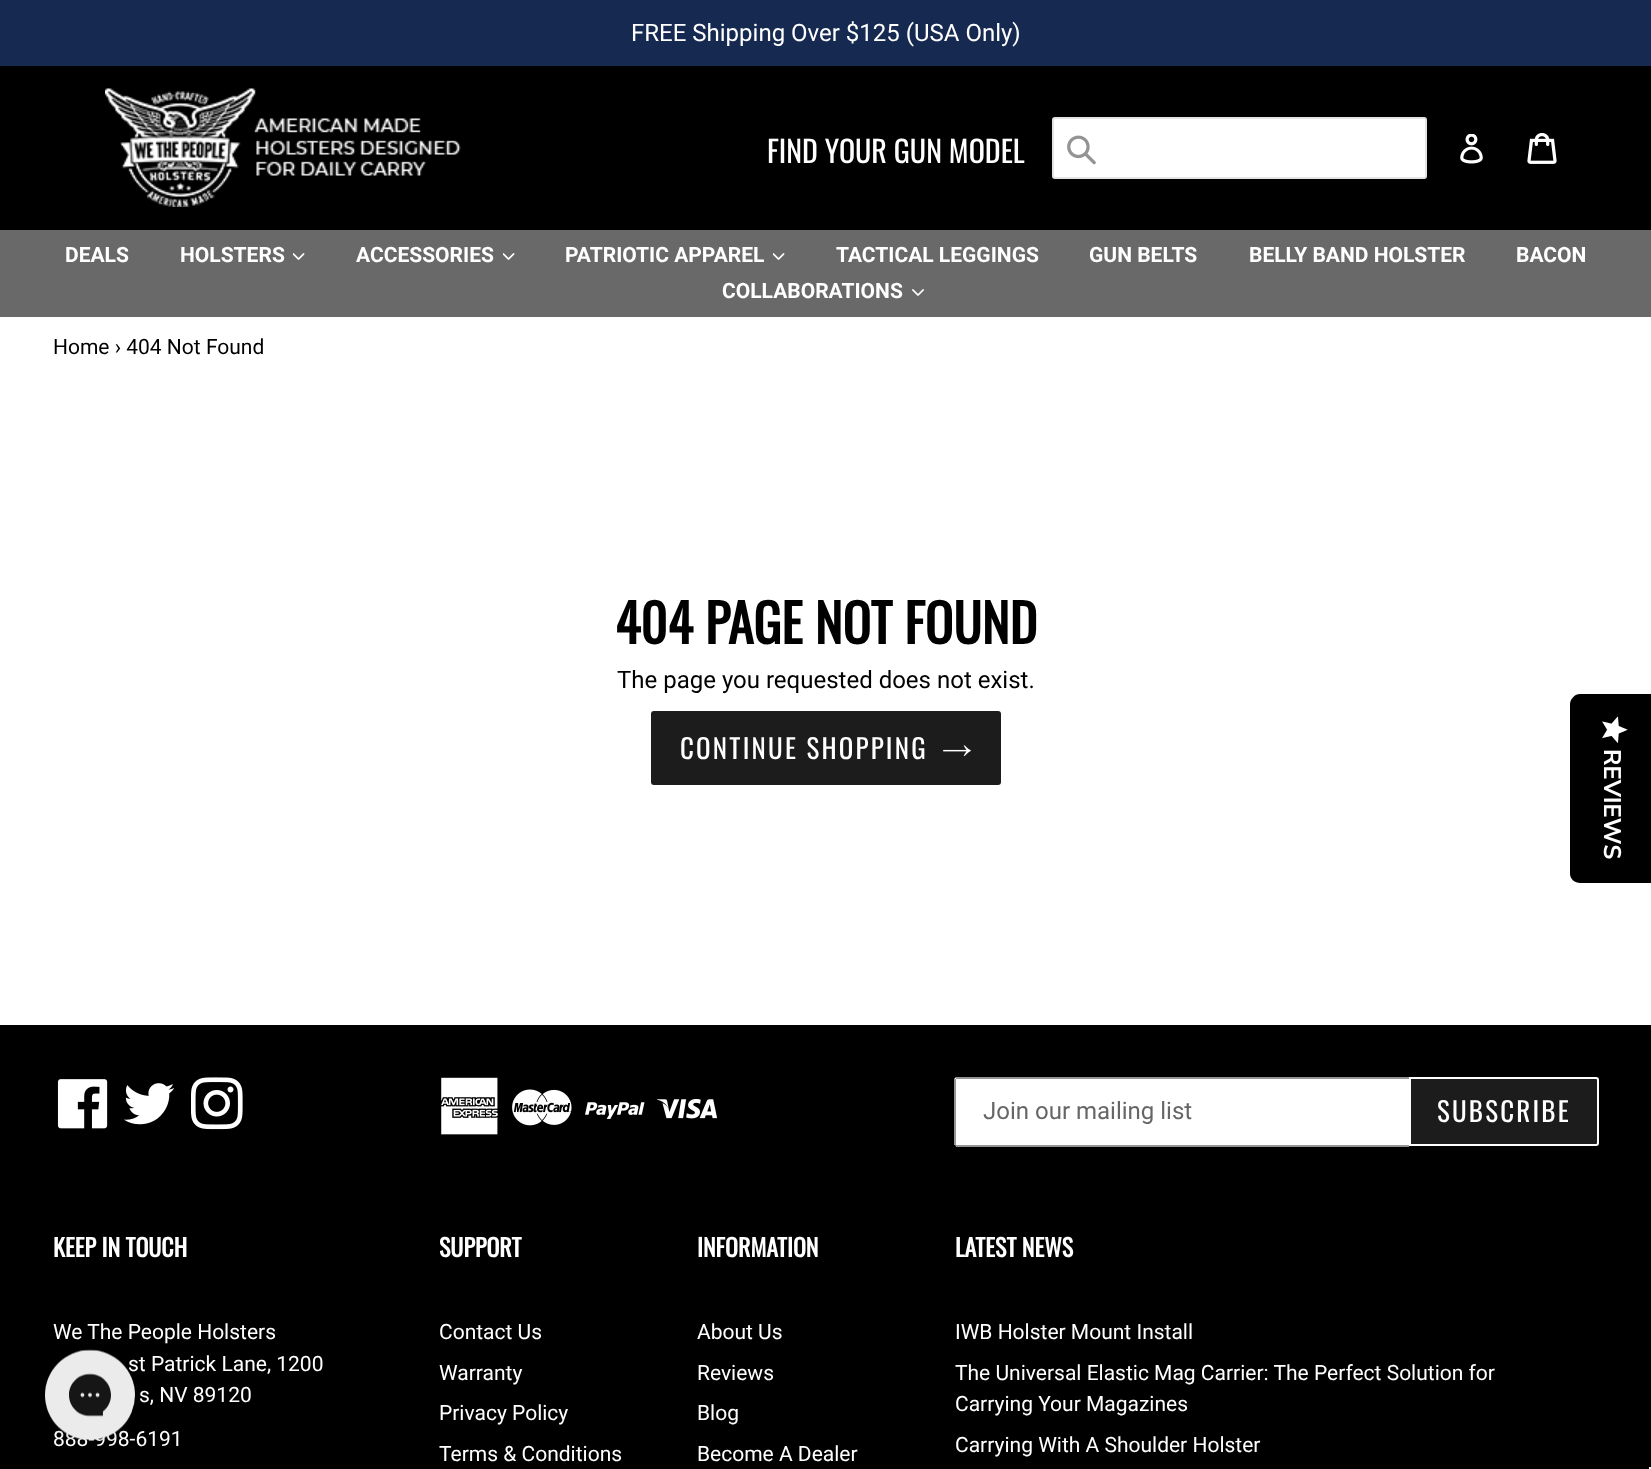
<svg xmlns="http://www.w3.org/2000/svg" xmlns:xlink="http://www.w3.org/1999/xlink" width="1651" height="1469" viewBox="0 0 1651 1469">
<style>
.cls-1{font:24px Roboto;fill:#ffffff}
.cls-2{font:30px Oswald;fill:#ffffff}
.cls-3{font:bold 21px Roboto;fill:#ffffff}
.cls-4{font:21px Roboto;fill:#000000}
.cls-5{font:bold 52.5px Oswald;fill:#000000}
.cls-6{font:24px Roboto;fill:#000000}
.cls-7{font:27px Oswald;letter-spacing:2.2px;fill:#ffffff}
.cls-8{font:24px Roboto;fill:#666666}
.cls-9{font:bold 24px Oswald;fill:#ffffff}
.cls-10{font:21px Roboto;fill:#ffffff}
.cls-11{font:200 24px Nunito Sans;fill:#ffffff}
</style>
<rect width="100%" height="100%" fill="#ffffff"/>
<rect fill="#162950" x="0" y="0" width="1651" height="66"/>
<rect fill="#000000" x="0" y="66" width="1651" height="164"/>
<image xlink:href="image0.png" x="105" y="88" width="356" height="119"/>
<rect fill="#ffffff" stroke="#e4e4e4" stroke-width="2" x="1053" y="118" width="373" height="60" rx="2"/>
<image xlink:href="image1.png" x="1067" y="135" width="29" height="30"/>
<image xlink:href="image2.png" x="1460" y="134" width="23" height="30"/>
<image xlink:href="image3.png" x="1527" y="132" width="30" height="32"/>
<rect fill="#696969" x="0" y="230" width="1651" height="87"/>
<image xlink:href="image4.png" x="293" y="253" width="12" height="7"/>
<image xlink:href="image4.png" x="503" y="253" width="12" height="7"/>
<image xlink:href="image4.png" x="773" y="253" width="12" height="7"/>
<image xlink:href="image5.png" x="912" y="289" width="12" height="7"/>
<rect fill="#1c1c1d" x="651" y="711" width="350" height="74" rx="3"/>
<image xlink:href="image6.png" x="943" y="745" width="28" height="11"/>
<rect fill="#000000" x="0" y="1025" width="1651" height="444"/>
<image xlink:href="image7.png" x="57" y="1079" width="51" height="50"/>
<image xlink:href="image8.png" x="124" y="1083" width="51" height="42"/>
<image xlink:href="image9.png" x="191" y="1077" width="52" height="53"/>
<image xlink:href="image10.png" x="441" y="1077" width="57" height="58"/>
<image xlink:href="image11.png" x="512" y="1089" width="60" height="37"/>
<image xlink:href="image12.png" x="585" y="1102" width="60" height="17"/>
<image xlink:href="image13.png" x="657" y="1098" width="60" height="21"/>
<path fill="#ffffff" d="M957 1077H1409V1146H957C955.5 1146 954 1144.5 954 1143V1080C954 1078.5 955.5 1077 957 1077Z"/>
<rect fill="#959595" x="956" y="1077" width="453" height="2"/>
<rect fill="#959595" x="956" y="1145" width="453" height="2"/>
<rect fill="#959595" x="954" y="1079" width="2" height="66"/>
<path fill="#1c1c1d" stroke="#ffffff" stroke-width="2" d="M1410 1078H1596C1597 1078 1598 1079 1598 1080V1143C1598 1144 1597 1145 1596 1145H1410Z"/>
<path fill="#000000" d="M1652 694V883H1580C1575 883 1570 879 1570 874V704C1570 699 1575 694 1580 694Z"/>
<image xlink:href="image14.png" x="1602" y="716" width="26" height="27"/>
<rect fill="#f5f5f5" x="1649" y="1467" width="2" height="2"/>
<text class="cls-1" x="631" y="41">FREE Shipping Over $125 (USA Only)</text>
<text class="cls-2" x="767" y="163">FIND YOUR GUN MODEL</text>
<text class="cls-3" x="65" y="262">DEALS</text>
<text class="cls-3" x="180" y="262">HOLSTERS</text>
<text class="cls-3" x="356" y="262">ACCESSORIES</text>
<text class="cls-3" x="565" y="262">PATRIOTIC APPAREL</text>
<text class="cls-3" x="836" y="262">TACTICAL LEGGINGS</text>
<text class="cls-3" x="1089" y="262">GUN BELTS</text>
<text class="cls-3" x="1249" y="262">BELLY BAND HOLSTER</text>
<text class="cls-3" x="1516" y="262">BACON</text>
<text class="cls-3" x="722" y="298">COLLABORATIONS</text>
<text class="cls-4" x="53" y="354">Home › 404 Not Found</text>
<text class="cls-5" x="615" y="644">404 PAGE NOT FOUND</text>
<text class="cls-6" x="617" y="688">The page you requested does not exist.</text>
<text class="cls-7" x="680" y="759">CONTINUE SHOPPING</text>
<text class="cls-8" x="983" y="1119">Join our mailing list</text>
<text class="cls-7" x="1437" y="1122">SUBSCRIBE</text>
<text class="cls-9" x="53" y="1257">KEEP IN TOUCH</text>
<text class="cls-10" x="53" y="1339">We The People Holsters</text>
<text class="cls-10" x="128" y="1371">st Patrick Lane, 1200</text>
<text class="cls-10" x="139" y="1402">s, NV 89120</text>
<text class="cls-10" x="53" y="1446">888-998-6191</text>
<text class="cls-9" x="439" y="1257">SUPPORT</text>
<text class="cls-10"><tspan x="439" y="1339">Contact Us</tspan><tspan x="439" y="1380">Warranty</tspan><tspan x="439" y="1420">Privacy Policy</tspan><tspan x="439" y="1461">Terms &amp; Conditions</tspan></text>
<text class="cls-9" x="697" y="1257">INFORMATION</text>
<text class="cls-10"><tspan x="697" y="1339">About Us</tspan><tspan x="697" y="1380">Reviews</tspan><tspan x="697" y="1420">Blog</tspan><tspan x="697" y="1461">Become A Dealer</tspan></text>
<text class="cls-9" x="955" y="1257">LATEST NEWS</text>
<text class="cls-10"><tspan x="955" y="1339">IWB Holster Mount Install</tspan><tspan x="955" y="1380">The Universal Elastic Mag Carrier: The Perfect Solution for</tspan><tspan x="955" y="1411">Carrying Your Magazines</tspan><tspan x="955" y="1452">Carrying With A Shoulder Holster</tspan></text>
<text class="cls-11" x="1604" y="749" transform="rotate(90 1604 749)">REVIEWS</text>
<image xlink:href="image15.png" x="45" y="1349" width="92" height="92"/>
</svg>
